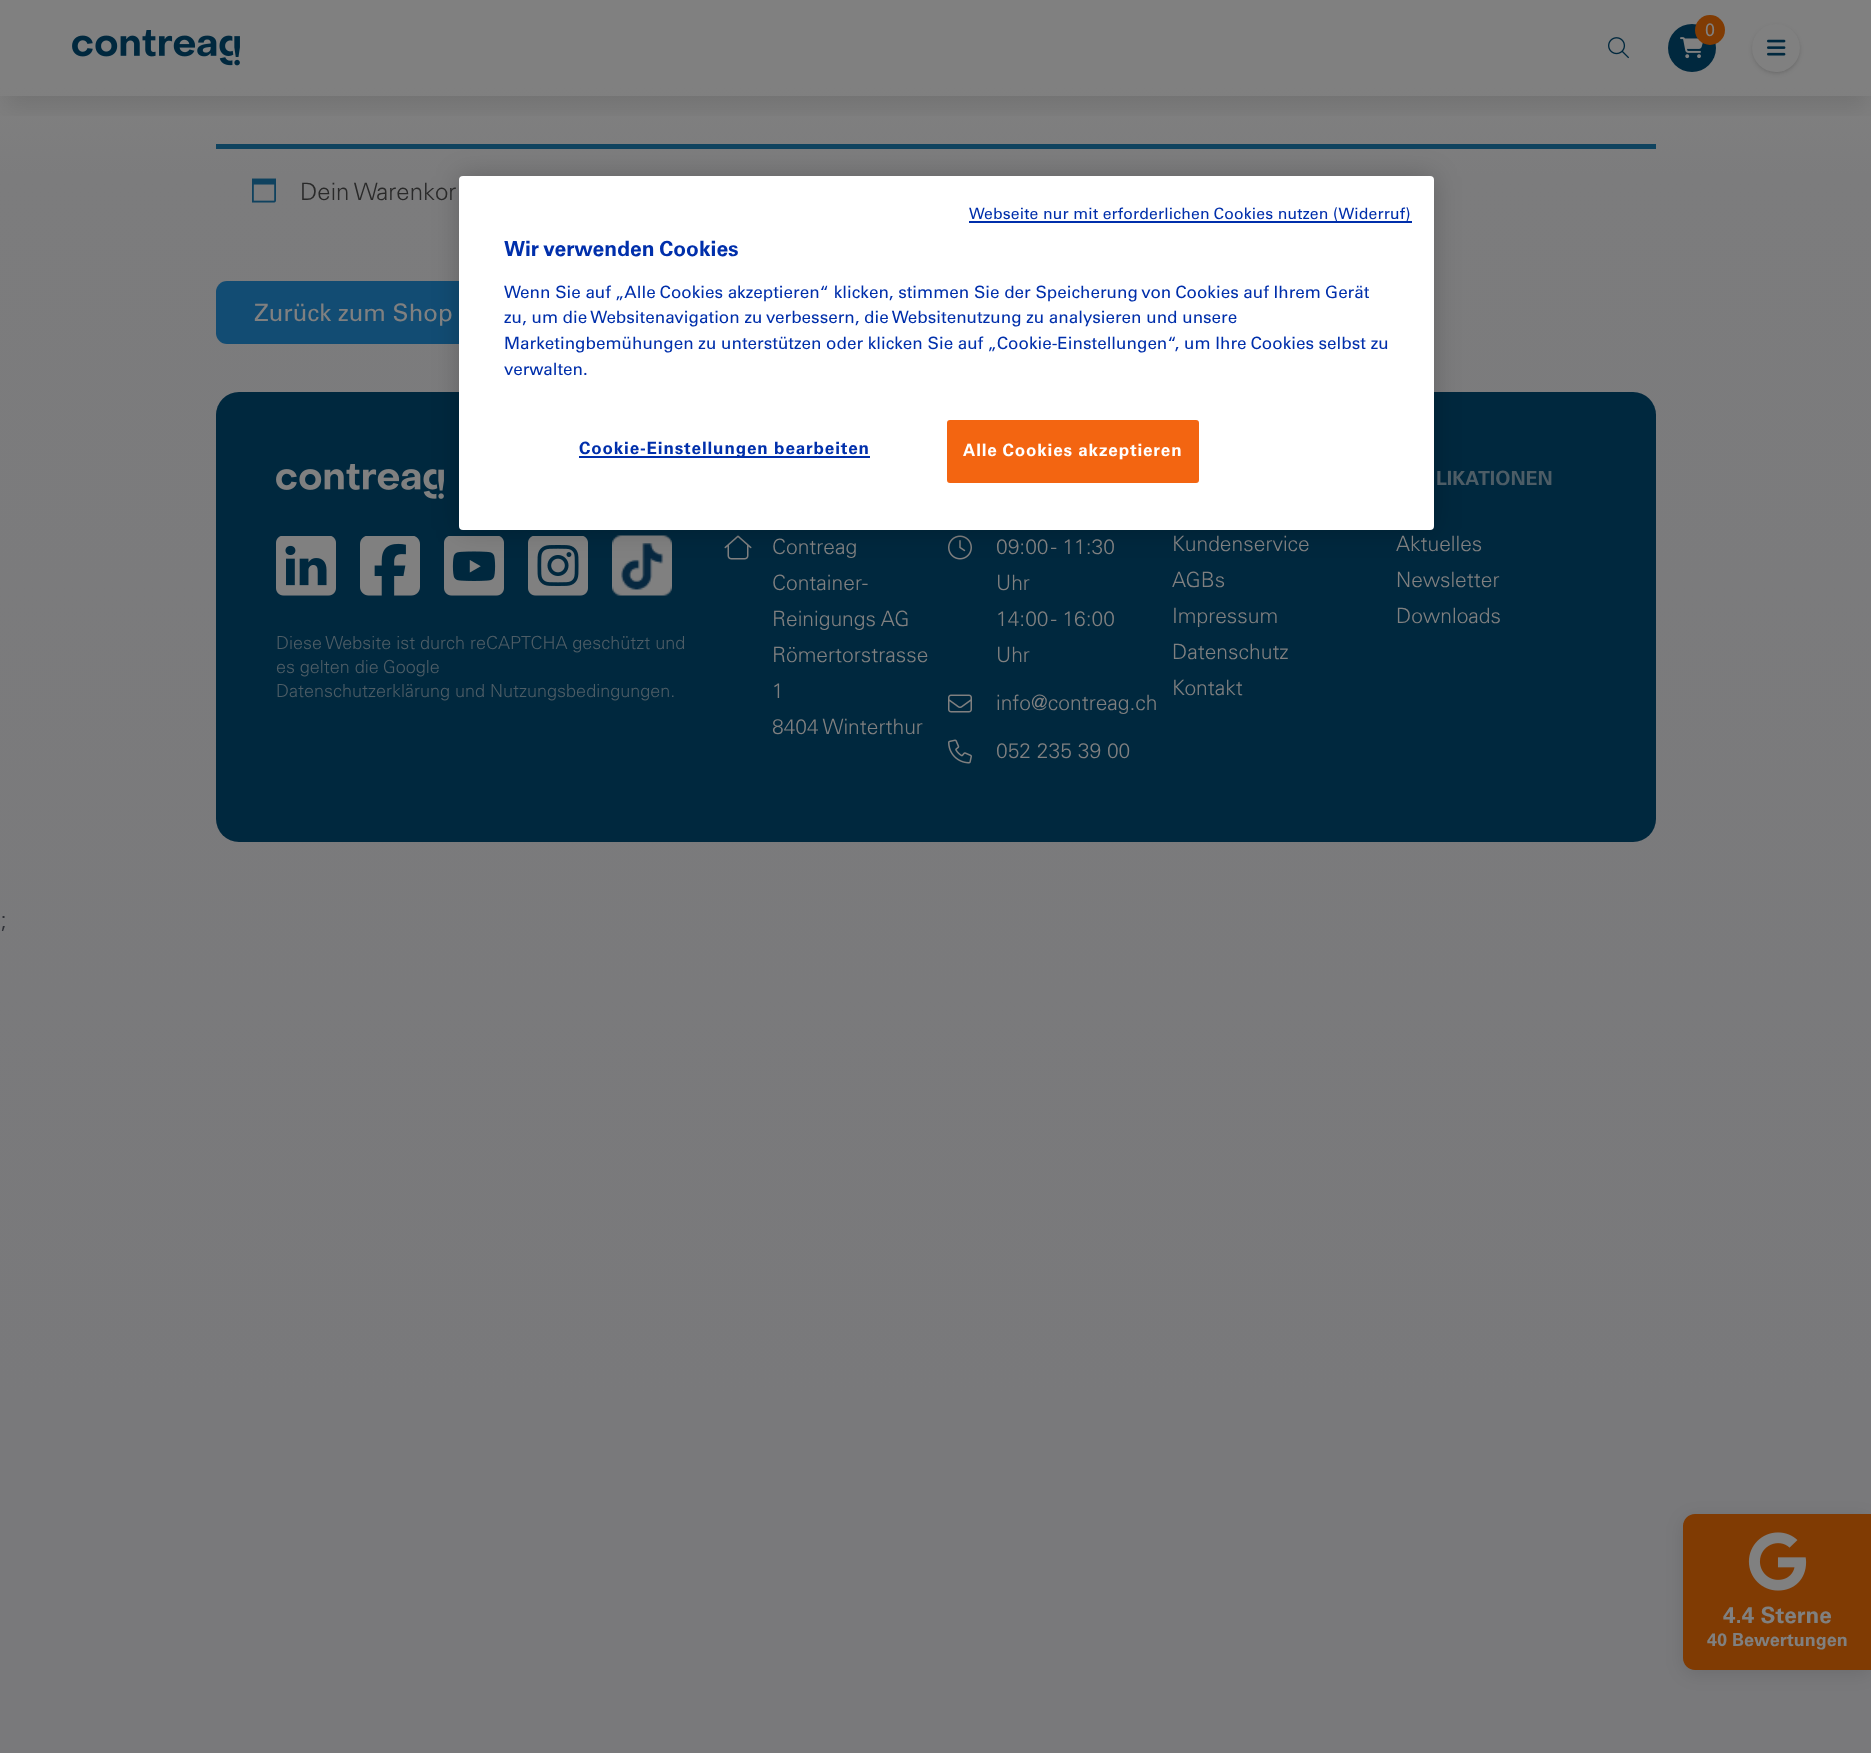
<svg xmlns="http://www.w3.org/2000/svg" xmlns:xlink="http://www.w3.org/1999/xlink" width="1871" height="1753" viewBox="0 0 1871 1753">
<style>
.cls-1{font:18px Univers;fill:#808080}
.cls-2{font:300 24px Univers;fill:#292929}
.cls-3{font:24px Univers;fill:#808080}
.cls-4{font:300 18px Univers;fill:#4d5d66}
.cls-5{font:300 21px Univers;fill:#808080}
.cls-6{font:bold 19.5px Univers;fill:#4d5d66}
.cls-7{font:15.75px Univers;letter-spacing:0.15px;fill:#002fab}
.cls-8{font:bold 21px Univers;fill:#002fab}
.cls-9{font:17.07px Univers;fill:#002fab}
.cls-10{font:bold 17.07px Univers;letter-spacing:0.85px;fill:#002fab}
.cls-11{font:bold 17.07px Univers;letter-spacing:0.85px;fill:#ffffff}
.cls-12{font:300 24px Univers;fill:#2e3036}
.cls-13{font:bold 22.5px Univers;fill:#808080}
.cls-14{font:bold 18px Univers;fill:#808080}
</style>
<defs>
<linearGradient id="g1" gradientUnits="userSpaceOnUse" x1="936" y1="0" x2="936" y2="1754"><stop offset="0" stop-color="#808080"/><stop offset="0.05" stop-color="#808080"/><stop offset="0.1" stop-color="#7c7c7d"/><stop offset="0.8" stop-color="#79797b"/><stop offset="1" stop-color="#79797b"/></linearGradient>
<clipPath id="clip1"><rect x="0" y="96" width="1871" height="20"/></clipPath>
</defs>
<rect width="100%" height="100%" fill="#ffffff"/>
<rect fill="url(#g1)" x="0" y="0" width="1871" height="1753"/>
<g clip-path="url(#clip1)">
<rect fill="#000000" fill-opacity="0.1" filter="blur(11px)" x="5" y="20" width="1863" height="87"/>
</g>
<image xlink:href="image0.png" x="72" y="30" width="168" height="36"/>
<circle fill="#00283e" cx="1692" cy="48" r="24"/>
<image xlink:href="image1.png" x="1680" y="37" width="23" height="22"/>
<circle fill="#803b03" cx="1710" cy="30" r="15"/>
<rect fill="#000000" fill-opacity="0.1" filter="blur(1.5px)" x="1754" y="27" width="45" height="45" rx="22.5"/>
<rect fill="#000000" fill-opacity="0.1" filter="blur(2px)" x="1752" y="26" width="48" height="48" rx="24"/>
<circle fill="#808080" cx="1776" cy="48" r="24"/>
<image xlink:href="image2.png" x="1767" y="39" width="19" height="17"/>
<image xlink:href="image3.png" x="1608" y="37" width="21" height="22"/>
<rect fill="#0f435f" x="216" y="144" width="1440" height="5"/>
<image xlink:href="image4.png" x="252" y="178" width="24" height="25"/>
<rect fill="#124c73" x="216" y="281" width="273" height="63" rx="11"/>
<rect fill="#00283e" x="216" y="392" width="1440" height="450" rx="23"/>
<image xlink:href="image5.png" x="276" y="464" width="168" height="35"/>
<image xlink:href="image6.png" x="276" y="536" width="60" height="60"/>
<image xlink:href="image7.png" x="360" y="536" width="60" height="60"/>
<image xlink:href="image8.png" x="444" y="536" width="60" height="60"/>
<image xlink:href="image9.png" x="528" y="536" width="60" height="60"/>
<image xlink:href="image10.png" x="612" y="535" width="60" height="61"/>
<image xlink:href="image11.png" x="724" y="535" width="28" height="25"/>
<image xlink:href="image12.png" x="948" y="535" width="24" height="25"/>
<image xlink:href="image13.png" x="948" y="694" width="24" height="19"/>
<image xlink:href="image14.png" x="948" y="739" width="24" height="25"/>
<rect fill="#000000" fill-opacity="0.2" filter="blur(13.5px)" x="459" y="176" width="975" height="354" rx="4"/>
<rect fill="#ffffff" x="459" y="176" width="975" height="354" rx="4"/>
<rect fill="#002fab" x="969" y="221" width="443" height="2"/>
<rect fill="#002fab" x="579" y="456" width="291" height="2"/>
<rect fill="#f36511" stroke="#f36511" stroke-width="2" x="948" y="421" width="250" height="61" rx="2"/>
<rect fill="#000000" fill-opacity="0.1" filter="blur(9px)" x="1683" y="1518" width="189" height="156" rx="12"/>
<path fill="#803b03" d="M1695 1514H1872V1670H1695C1688.5 1670 1683 1664.5 1683 1658V1526C1683 1519.5 1688.5 1514 1695 1514Z"/>
<image xlink:href="image15.png" x="1748" y="1532" width="59" height="59"/>
<text class="cls-1" x="1705" y="36">0</text>
<text class="cls-2" x="300" y="200">Dein Warenkor</text>
<text class="cls-3" x="254" y="321">Zurück zum Shop</text>
<text class="cls-4"><tspan x="276" y="649">Diese Website ist durch reCAPTCHA geschützt und</tspan><tspan x="276" y="673">es gelten die Google</tspan><tspan x="276" y="697">Datenschutzerklärung und Nutzungsbedingungen.</tspan></text>
<text class="cls-5"><tspan x="772" y="554">Contreag</tspan><tspan x="772" y="590">Container-</tspan><tspan x="772" y="626">Reinigungs AG</tspan><tspan x="772" y="662">Römertorstrasse</tspan><tspan x="772" y="698">1</tspan><tspan x="772" y="734">8404 Winterthur</tspan></text>
<text class="cls-5"><tspan x="996" y="554">09:00 - 11:30</tspan><tspan x="996" y="590">Uhr</tspan><tspan x="996" y="626">14:00 - 16:00</tspan><tspan x="996" y="662">Uhr</tspan></text>
<text class="cls-5" x="996" y="710">info@contreag.ch</text>
<text class="cls-5" x="996" y="758">052 235 39 00</text>
<text class="cls-5"><tspan x="1172" y="551">Kundenservice</tspan><tspan x="1172" y="587">AGBs</tspan><tspan x="1172" y="623">Impressum</tspan><tspan x="1172" y="659">Datenschutz</tspan><tspan x="1172" y="695">Kontakt</tspan></text>
<text class="cls-6" x="1436" y="485">LIKATIONEN</text>
<text class="cls-5"><tspan x="1396" y="551">Aktuelles</tspan><tspan x="1396" y="587">Newsletter</tspan><tspan x="1396" y="623">Downloads</tspan></text>
<text class="cls-7" x="969" y="219">Webseite nur mit erforderlichen Cookies nutzen (Widerruf)</text>
<text class="cls-8" x="504" y="256">Wir verwenden Cookies</text>
<text class="cls-9"><tspan x="504" y="298">Wenn Sie auf „Alle Cookies akzeptieren“ klicken, stimmen Sie der Speicherung von Cookies auf Ihrem Gerät</tspan><tspan x="504" y="323">zu, um die Websitenavigation zu verbessern, die Websitenutzung zu analysieren und unsere</tspan><tspan x="504" y="349">Marketingbemühungen zu unterstützen oder klicken Sie auf „Cookie-Einstellungen“, um Ihre Cookies selbst zu</tspan><tspan x="504" y="375">verwalten.</tspan></text>
<text class="cls-10" x="579" y="454">Cookie-Einstellungen bearbeiten</text>
<text class="cls-11" x="963" y="456">Alle Cookies akzeptieren</text>
<text class="cls-12" x="0" y="928">;</text>
<text class="cls-13" x="1723" y="1623">4.4 Sterne</text>
<text class="cls-14" x="1707" y="1646">40 Bewertungen</text>
</svg>
